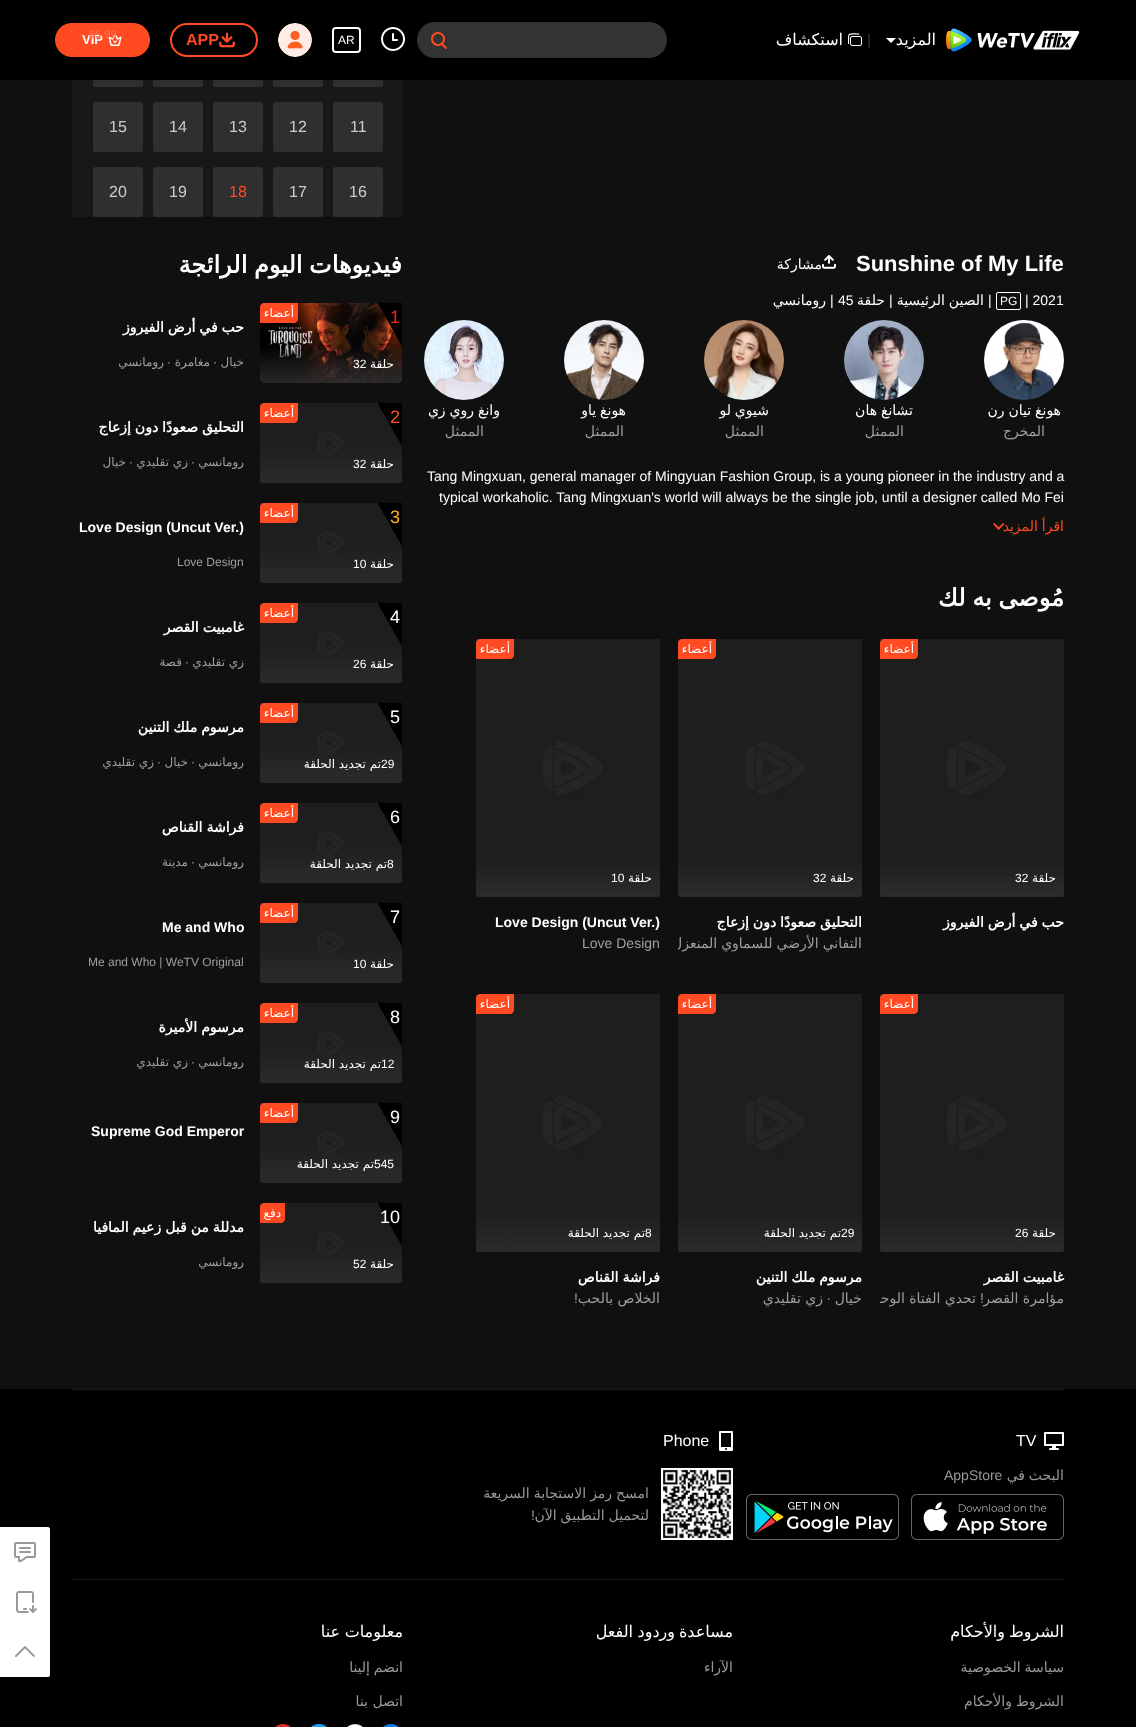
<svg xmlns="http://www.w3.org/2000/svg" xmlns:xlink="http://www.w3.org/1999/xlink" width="1136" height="1727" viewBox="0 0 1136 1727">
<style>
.cls-1{font:16px DejaVu Sans;direction:rtl;fill:#ffffff}
.cls-2{font:16px Liberation Sans;fill:#333333}
.cls-3{font:12px Liberation Sans;fill:#ffffff}
.cls-4{font:bold 16px Liberation Sans;fill:#ff4a22}
.cls-5{font:bold 13px Liberation Sans;fill:#ffffff}
.cls-6{font:bold 11px Liberation Sans;fill:#ff6a49}
.cls-7{font:16px Liberation Sans;fill:#cccccc}
.cls-8{font:16px Liberation Sans;fill:#ff4a22}
.cls-9{font:bold 22px Liberation Sans;fill:#ffffff}
.cls-10{font:14px DejaVu Sans;direction:rtl;fill:#ffffff}
.cls-11{font:14px Liberation Sans;fill:#ffffff}
.cls-12{font:14px DejaVu Sans;direction:rtl;fill:#9f9f9f}
.cls-13{font:14px DejaVu Sans;direction:rtl;fill:#ff4a22}
.cls-14{font:bold 24px DejaVu Sans;direction:rtl;fill:#ffffff}
.cls-15{font:12px DejaVu Sans;direction:rtl;fill:#ffffff}
.cls-16{font:bold 14px DejaVu Sans;direction:rtl;fill:#ffffff}
.cls-17{font:bold 14px Liberation Sans;fill:#ffffff}
.cls-18{font:14px Liberation Sans;fill:#9f9f9f}
.cls-19{font:14px Liberation Sans;direction:rtl;fill:#9f9f9f}
.cls-20{font:18px Liberation Sans;fill:#ff2222}
.cls-21{font:12px DejaVu Sans;direction:rtl;fill:#9f9f9f}
.cls-22{font:12px Liberation Sans;direction:rtl;fill:#9f9f9f}
.cls-23{font:18px Liberation Sans;fill:#ff4a22}
.cls-24{font:18px Liberation Sans;fill:#ffad22}
.cls-25{font:12px Liberation Sans;fill:#9f9f9f}
.cls-26{font:18px Liberation Sans;fill:#ffffff}
.cls-27{font:16px Liberation Sans;fill:#ffffff}
.cls-28{font:14px DejaVu Sans;direction:rtl;fill:#999999}
.cls-29{font:14px Liberation Sans;fill:#999999}
.cls-30{font:14px Liberation Sans;direction:rtl;fill:#999999}
</style>
<defs>
<clipPath id="clip1"><rect x="848" y="33" width="14" height="14"/></clipPath>
<linearGradient id="g1" gradientUnits="userSpaceOnUse" x1="972" y1="897" x2="972" y2="859"><stop offset="0" stop-color="#2c2c2c"/><stop offset="1" stop-color="#1e1e1e"/></linearGradient>
<linearGradient id="g2" gradientUnits="userSpaceOnUse" x1="770" y1="897" x2="770" y2="859"><stop offset="0" stop-color="#2c2c2c"/><stop offset="1" stop-color="#1e1e1e"/></linearGradient>
<linearGradient id="g3" gradientUnits="userSpaceOnUse" x1="568" y1="897" x2="568" y2="859"><stop offset="0" stop-color="#2c2c2c"/><stop offset="1" stop-color="#1e1e1e"/></linearGradient>
<linearGradient id="g4" gradientUnits="userSpaceOnUse" x1="972" y1="1252" x2="972" y2="1214"><stop offset="0" stop-color="#2c2c2c"/><stop offset="1" stop-color="#1e1e1e"/></linearGradient>
<linearGradient id="g5" gradientUnits="userSpaceOnUse" x1="770" y1="1252" x2="770" y2="1214"><stop offset="0" stop-color="#2c2c2c"/><stop offset="1" stop-color="#1e1e1e"/></linearGradient>
<linearGradient id="g6" gradientUnits="userSpaceOnUse" x1="568" y1="1252" x2="568" y2="1214"><stop offset="0" stop-color="#2c2c2c"/><stop offset="1" stop-color="#1e1e1e"/></linearGradient>
<clipPath id="clip2"><rect x="260" y="303" width="142" height="80"/></clipPath>
<linearGradient id="g7" gradientUnits="userSpaceOnUse" x1="331" y1="383" x2="331" y2="345"><stop offset="0" stop-color="#2d2d2d" stop-opacity="0.9"/><stop offset="1" stop-color="#2d2d2d" stop-opacity="0"/></linearGradient>
<clipPath id="clip3"><rect x="260" y="403" width="142" height="80"/></clipPath>
<linearGradient id="g8" gradientUnits="userSpaceOnUse" x1="331" y1="483" x2="331" y2="445"><stop offset="0" stop-color="#2d2d2d" stop-opacity="0.9"/><stop offset="1" stop-color="#2d2d2d" stop-opacity="0"/></linearGradient>
<clipPath id="clip4"><rect x="260" y="503" width="142" height="80"/></clipPath>
<linearGradient id="g9" gradientUnits="userSpaceOnUse" x1="331" y1="583" x2="331" y2="545"><stop offset="0" stop-color="#2d2d2d" stop-opacity="0.9"/><stop offset="1" stop-color="#2d2d2d" stop-opacity="0"/></linearGradient>
<clipPath id="clip5"><rect x="260" y="603" width="142" height="80"/></clipPath>
<linearGradient id="g10" gradientUnits="userSpaceOnUse" x1="331" y1="683" x2="331" y2="645"><stop offset="0" stop-color="#2d2d2d" stop-opacity="0.9"/><stop offset="1" stop-color="#2d2d2d" stop-opacity="0"/></linearGradient>
<clipPath id="clip6"><rect x="260" y="703" width="142" height="80"/></clipPath>
<linearGradient id="g11" gradientUnits="userSpaceOnUse" x1="331" y1="783" x2="331" y2="745"><stop offset="0" stop-color="#2d2d2d" stop-opacity="0.9"/><stop offset="1" stop-color="#2d2d2d" stop-opacity="0"/></linearGradient>
<clipPath id="clip7"><rect x="260" y="803" width="142" height="80"/></clipPath>
<linearGradient id="g12" gradientUnits="userSpaceOnUse" x1="331" y1="883" x2="331" y2="845"><stop offset="0" stop-color="#2d2d2d" stop-opacity="0.9"/><stop offset="1" stop-color="#2d2d2d" stop-opacity="0"/></linearGradient>
<clipPath id="clip8"><rect x="260" y="903" width="142" height="80"/></clipPath>
<linearGradient id="g13" gradientUnits="userSpaceOnUse" x1="331" y1="983" x2="331" y2="945"><stop offset="0" stop-color="#2d2d2d" stop-opacity="0.9"/><stop offset="1" stop-color="#2d2d2d" stop-opacity="0"/></linearGradient>
<clipPath id="clip9"><rect x="260" y="1003" width="142" height="80"/></clipPath>
<linearGradient id="g14" gradientUnits="userSpaceOnUse" x1="331" y1="1083" x2="331" y2="1045"><stop offset="0" stop-color="#2d2d2d" stop-opacity="0.9"/><stop offset="1" stop-color="#2d2d2d" stop-opacity="0"/></linearGradient>
<clipPath id="clip10"><rect x="260" y="1103" width="142" height="80"/></clipPath>
<linearGradient id="g15" gradientUnits="userSpaceOnUse" x1="331" y1="1183" x2="331" y2="1145"><stop offset="0" stop-color="#2d2d2d" stop-opacity="0.9"/><stop offset="1" stop-color="#2d2d2d" stop-opacity="0"/></linearGradient>
<clipPath id="clip11"><rect x="260" y="1203" width="142" height="80"/></clipPath>
<linearGradient id="g16" gradientUnits="userSpaceOnUse" x1="331" y1="1283" x2="331" y2="1245"><stop offset="0" stop-color="#2d2d2d" stop-opacity="0.9"/><stop offset="1" stop-color="#2d2d2d" stop-opacity="0"/></linearGradient>
<clipPath id="clip12"><rect x="678" y="933" width="184" height="21"/></clipPath>
<clipPath id="clip13"><rect x="880" y="1288" width="184" height="21"/></clipPath>
</defs>
<rect width="100%" height="100%" fill="#000000"/>
<rect fill="#101010" x="0" y="80" width="1136" height="1309"/>
<rect fill="#181818" x="72" y="80" width="330" height="137"/>
<rect fill="#2f2f2f" x="333" y="37" width="50" height="50" rx="2"/>
<rect fill="#2f2f2f" x="273" y="37" width="50" height="50" rx="2"/>
<rect fill="#2f2f2f" x="213" y="37" width="50" height="50" rx="2"/>
<rect fill="#2f2f2f" x="153" y="37" width="50" height="50" rx="2"/>
<rect fill="#2f2f2f" x="93" y="37" width="50" height="50" rx="2"/>
<rect fill="#000000" x="93" y="37" width="290" height="43"/>
<image xlink:href="image0.png" x="946" y="28" width="134" height="24"/>
<path fill="#ffffff" d="M886 38H896L891 43Z"/>
<rect fill="none" stroke="#ffffff" x="850.5" y="36.5" width="11" height="9" rx="1.5"/>
<g clip-path="url(#clip1)">
<path fill="none" stroke="#ffffff" stroke-width="1.2" stroke-linecap="round" d="M859 34C847.5 34 848.5 32 848.5 43.5"/>
</g>
<rect fill="#333333" x="417" y="22" width="250" height="36" rx="18"/>
<image xlink:href="image1.png" x="431" y="32" width="16" height="17"/>
<image xlink:href="image2.png" x="381" y="27" width="24" height="24"/>
<rect fill="none" stroke="#ffffff" stroke-width="2" x="333" y="28" width="27" height="24" rx="3"/>
<image xlink:href="image3.png" x="278" y="23" width="34" height="34"/>
<rect fill="none" stroke="#ff4a22" stroke-width="2" x="171" y="24" width="86" height="32" rx="16"/>
<image xlink:href="image4.png" x="219" y="32" width="16" height="16"/>
<rect fill="#ff4a22" x="55" y="23" width="95" height="34" rx="17"/>
<image xlink:href="image5.png" x="108" y="34" width="14" height="13"/>
<rect fill="#2f2f2f" x="333" y="102" width="50" height="50" rx="2"/>
<rect fill="#2f2f2f" x="273" y="102" width="50" height="50" rx="2"/>
<rect fill="#2f2f2f" x="213" y="102" width="50" height="50" rx="2"/>
<rect fill="#2f2f2f" x="153" y="102" width="50" height="50" rx="2"/>
<rect fill="#2f2f2f" x="93" y="102" width="50" height="50" rx="2"/>
<rect fill="#2f2f2f" x="333" y="167" width="50" height="50" rx="2"/>
<rect fill="#2f2f2f" x="273" y="167" width="50" height="50" rx="2"/>
<rect fill="#2f2f2f" x="213" y="167" width="50" height="50" rx="2"/>
<rect fill="#2f2f2f" x="153" y="167" width="50" height="50" rx="2"/>
<rect fill="#2f2f2f" x="93" y="167" width="50" height="50" rx="2"/>
<image xlink:href="image6.png" x="822" y="255" width="14" height="14"/>
<rect fill="none" stroke="#ffffff" x="996.5" y="292.5" width="24" height="17" rx="1.5"/>
<image xlink:href="image7.png" x="984" y="320" width="80" height="80"/>
<image xlink:href="image8.png" x="844" y="320" width="80" height="80"/>
<image xlink:href="image9.png" x="704" y="320" width="80" height="80"/>
<image xlink:href="image10.png" x="564" y="320" width="80" height="80"/>
<image xlink:href="image11.png" x="424" y="320" width="80" height="80"/>
<path fill="#ff4a22" d="M1003 523L1004.5 524L998.5 530L997.5 528.5Z"/>
<path fill="#ff4a22" d="M994.5 523L1000 528.5L998.5 530L993 524Z"/>
<image xlink:href="image12.png" x="880" y="639" width="184" height="258"/>
<path fill="#ff4a22" d="M884 639H918V655C918 657 916 659 914 659H880V643C880 641 882 639 884 639Z"/>
<path fill="url(#g1)" d="M880 859H1064V893C1064 895 1062 897 1060 897H884C882 897 880 895 880 893Z"/>
<image xlink:href="image12.png" x="678" y="639" width="184" height="258"/>
<path fill="#ff4a22" d="M682 639H716V655C716 657 714 659 712 659H678V643C678 641 680 639 682 639Z"/>
<path fill="url(#g2)" d="M678 859H862V893C862 895 860 897 858 897H682C680 897 678 895 678 893Z"/>
<image xlink:href="image12.png" x="476" y="639" width="184" height="258"/>
<path fill="#ff4a22" d="M480 639H514V655C514 657 512 659 510 659H476V643C476 641 478 639 480 639Z"/>
<path fill="url(#g3)" d="M476 859H660V893C660 895 658 897 656 897H480C478 897 476 895 476 893Z"/>
<image xlink:href="image12.png" x="880" y="994" width="184" height="258"/>
<path fill="#ff4a22" d="M884 994H918V1010C918 1012 916 1014 914 1014H880V998C880 996 882 994 884 994Z"/>
<path fill="url(#g4)" d="M880 1214H1064V1248C1064 1250 1062 1252 1060 1252H884C882 1252 880 1250 880 1248Z"/>
<image xlink:href="image12.png" x="678" y="994" width="184" height="258"/>
<path fill="#ff4a22" d="M682 994H716V1010C716 1012 714 1014 712 1014H678V998C678 996 680 994 682 994Z"/>
<path fill="url(#g5)" d="M678 1214H862V1248C862 1250 860 1252 858 1252H682C680 1252 678 1250 678 1248Z"/>
<image xlink:href="image12.png" x="476" y="994" width="184" height="258"/>
<path fill="#ff4a22" d="M480 994H514V1010C514 1012 512 1014 510 1014H476V998C476 996 478 994 480 994Z"/>
<path fill="url(#g6)" d="M476 1214H660V1248C660 1250 658 1252 656 1252H480C478 1252 476 1250 476 1248Z"/>
<image xlink:href="image13.png" x="260" y="303" width="142" height="80"/>
<g clip-path="url(#clip2)">
<path fill="#000000" d="M377 302H403V348Z"/>
</g>
<path fill="#ff4a22" d="M264 303H298V319C298 321 296 323 294 323H260V307C260 305 262 303 264 303Z"/>
<path fill="url(#g7)" d="M260 345H402V379C402 381 400 383 398 383H264C262 383 260 381 260 379Z"/>
<image xlink:href="image14.png" x="260" y="403" width="142" height="80"/>
<g clip-path="url(#clip3)">
<path fill="#000000" d="M377 402H403V448Z"/>
</g>
<path fill="#ff4a22" d="M264 403H298V419C298 421 296 423 294 423H260V407C260 405 262 403 264 403Z"/>
<path fill="url(#g8)" d="M260 445H402V479C402 481 400 483 398 483H264C262 483 260 481 260 479Z"/>
<image xlink:href="image14.png" x="260" y="503" width="142" height="80"/>
<g clip-path="url(#clip4)">
<path fill="#000000" d="M377 502H403V548Z"/>
</g>
<path fill="#ff4a22" d="M264 503H298V519C298 521 296 523 294 523H260V507C260 505 262 503 264 503Z"/>
<path fill="url(#g9)" d="M260 545H402V579C402 581 400 583 398 583H264C262 583 260 581 260 579Z"/>
<image xlink:href="image14.png" x="260" y="603" width="142" height="80"/>
<g clip-path="url(#clip5)">
<path fill="#000000" d="M377 602H403V648Z"/>
</g>
<path fill="#ff4a22" d="M264 603H298V619C298 621 296 623 294 623H260V607C260 605 262 603 264 603Z"/>
<path fill="url(#g10)" d="M260 645H402V679C402 681 400 683 398 683H264C262 683 260 681 260 679Z"/>
<image xlink:href="image14.png" x="260" y="703" width="142" height="80"/>
<g clip-path="url(#clip6)">
<path fill="#000000" d="M377 702H403V748Z"/>
</g>
<path fill="#ff4a22" d="M264 703H298V719C298 721 296 723 294 723H260V707C260 705 262 703 264 703Z"/>
<path fill="url(#g11)" d="M260 745H402V779C402 781 400 783 398 783H264C262 783 260 781 260 779Z"/>
<image xlink:href="image14.png" x="260" y="803" width="142" height="80"/>
<g clip-path="url(#clip7)">
<path fill="#000000" d="M377 802H403V848Z"/>
</g>
<path fill="#ff4a22" d="M264 803H298V819C298 821 296 823 294 823H260V807C260 805 262 803 264 803Z"/>
<path fill="url(#g12)" d="M260 845H402V879C402 881 400 883 398 883H264C262 883 260 881 260 879Z"/>
<image xlink:href="image14.png" x="260" y="903" width="142" height="80"/>
<g clip-path="url(#clip8)">
<path fill="#000000" d="M377 902H403V948Z"/>
</g>
<path fill="#ff4a22" d="M264 903H298V919C298 921 296 923 294 923H260V907C260 905 262 903 264 903Z"/>
<path fill="url(#g13)" d="M260 945H402V979C402 981 400 983 398 983H264C262 983 260 981 260 979Z"/>
<image xlink:href="image14.png" x="260" y="1003" width="142" height="80"/>
<g clip-path="url(#clip9)">
<path fill="#000000" d="M377 1002H403V1048Z"/>
</g>
<path fill="#ff4a22" d="M264 1003H298V1019C298 1021 296 1023 294 1023H260V1007C260 1005 262 1003 264 1003Z"/>
<path fill="url(#g14)" d="M260 1045H402V1079C402 1081 400 1083 398 1083H264C262 1083 260 1081 260 1079Z"/>
<image xlink:href="image14.png" x="260" y="1103" width="142" height="80"/>
<g clip-path="url(#clip10)">
<path fill="#000000" d="M377 1102H403V1148Z"/>
</g>
<path fill="#ff4a22" d="M264 1103H298V1119C298 1121 296 1123 294 1123H260V1107C260 1105 262 1103 264 1103Z"/>
<path fill="url(#g15)" d="M260 1145H402V1179C402 1181 400 1183 398 1183H264C262 1183 260 1181 260 1179Z"/>
<image xlink:href="image14.png" x="260" y="1203" width="142" height="80"/>
<path fill="#ff4a22" d="M264 1203H285V1219C285 1221 283 1223 281 1223H260V1207C260 1205 262 1203 264 1203Z"/>
<g clip-path="url(#clip11)">
<path fill="#000000" d="M377 1202H403V1248Z"/>
</g>
<path fill="url(#g16)" d="M260 1245H402V1279C402 1281 400 1283 398 1283H264C262 1283 260 1281 260 1279Z"/>
<rect fill="#1a1a1a" x="72" y="1389" width="992" height="1"/>
<image xlink:href="image15.png" x="1044" y="1432" width="20" height="18"/>
<image xlink:href="image16.png" x="911" y="1494" width="153" height="46"/>
<image xlink:href="image17.png" x="746" y="1494" width="153" height="46"/>
<image xlink:href="image18.png" x="719" y="1431" width="14" height="20"/>
<image xlink:href="image19.png" x="661" y="1468" width="72" height="72"/>
<rect fill="#1a1a1a" x="72" y="1579" width="992" height="1"/>
<image xlink:href="image20.png" x="383" y="1724" width="16" height="3"/>
<image xlink:href="image21.png" x="347" y="1724" width="16" height="3"/>
<image xlink:href="image22.png" x="311" y="1724" width="16" height="3"/>
<image xlink:href="image23.png" x="275" y="1724" width="16" height="3"/>
<path fill="#ffffff" d="M0 1527H48C49 1527 50 1528 50 1529V1675C50 1676 49 1677 48 1677H0Z"/>
<image xlink:href="image24.png" x="14" y="1542" width="22" height="21"/>
<image xlink:href="image25.png" x="16" y="1591" width="21" height="22"/>
<image xlink:href="image26.png" x="15" y="1646" width="20" height="11"/>
<text class="cls-1" x="936" y="45">المزيد</text>
<text class="cls-2" x="867" y="45">|</text>
<text class="cls-1" x="843" y="45">استكشاف</text>
<text class="cls-3" x="338" y="44">AR</text>
<text class="cls-4" x="186" y="45">APP</text>
<text class="cls-5" x="82" y="44">VIP</text>
<text class="cls-6" x="89" y="38">$5.99</text>
<text class="cls-7" x="350" y="132">11</text>
<text class="cls-7" x="289" y="132">12</text>
<text class="cls-7" x="229" y="132">13</text>
<text class="cls-7" x="169" y="132">14</text>
<text class="cls-7" x="109" y="132">15</text>
<text class="cls-7" x="349" y="197">16</text>
<text class="cls-7" x="289" y="197">17</text>
<text class="cls-8" x="229" y="197">18</text>
<text class="cls-7" x="169" y="197">19</text>
<text class="cls-7" x="109" y="197">20</text>
<text class="cls-9" x="856" y="271">Sunshine of My Life</text>
<text class="cls-10" x="822" y="269">مشاركة</text>
<text class="cls-11" x="1025" y="305">| 2021</text>
<text class="cls-3" x="1000" y="305">PG</text>
<text class="cls-11" x="988" y="305">|</text>
<text class="cls-10" x="984" y="305" word-spacing="-0.5">الصين الرئيسية</text>
<text class="cls-11" x="889" y="305">|</text>
<text class="cls-10" x="885" y="305">حلقة</text>
<text class="cls-11" x="838" y="305">45</text>
<text class="cls-11" x="830" y="305">|</text>
<text class="cls-10" x="826" y="305">رومانسي</text>
<text class="cls-10" x="1061" y="415" word-spacing="-0.5">هونغ تيان رن</text>
<text class="cls-12" x="1045" y="436">المخرج</text>
<text class="cls-10" x="913" y="415" word-spacing="-0.5">تشانغ هان</text>
<text class="cls-12" x="904" y="436">الممثل</text>
<text class="cls-10" x="769" y="415" word-spacing="-0.5">شيوي لو</text>
<text class="cls-12" x="764" y="436">الممثل</text>
<text class="cls-10" x="626" y="415" word-spacing="-0.5">هونغ ياو</text>
<text class="cls-12" x="624" y="436">الممثل</text>
<text class="cls-10" x="500" y="415" word-spacing="-0.5">وانغ روي زي</text>
<text class="cls-12" x="484" y="436">الممثل</text>
<text class="cls-11" x="427" y="481">Tang Mingxuan, general manager of Mingyuan Fashion Group, is a young pioneer in the industry and a</text>
<text class="cls-11" x="439" y="502">typical workaholic. Tang Mingxuan's world will always be the single job, until a designer called Mo Fei</text>
<text class="cls-13" x="1064" y="531" word-spacing="-0.5">اقرأ المزيد</text>
<text class="cls-14" x="1064" y="606" word-spacing="-1">مُوصى به لك</text>
<text class="cls-15" x="914" y="653">أعضاء</text>
<text class="cls-15" x="1056" y="882">حلقة</text>
<text class="cls-3" x="1015" y="882">32</text>
<text class="cls-16" x="1064" y="927" word-spacing="-0.5">حب في أرض الفيروز</text>
<text class="cls-15" x="712" y="653">أعضاء</text>
<text class="cls-15" x="854" y="882">حلقة</text>
<text class="cls-3" x="813" y="882">32</text>
<text class="cls-16" x="862" y="927" word-spacing="-0.5">التحليق صعودًا دون إزعاج</text>
<g clip-path="url(#clip12)">
<text class="cls-12" x="862" y="948" word-spacing="-0.5">التفاني الأرضي للسماوي المنعزل</text>
</g>
<text class="cls-15" x="510" y="653">أعضاء</text>
<text class="cls-15" x="652" y="882">حلقة</text>
<text class="cls-3" x="611" y="882">10</text>
<text class="cls-17" x="495" y="927">Love Design (Uncut Ver.)</text>
<text class="cls-18" x="582" y="948">Love Design</text>
<text class="cls-15" x="914" y="1008">أعضاء</text>
<text class="cls-15" x="1056" y="1237">حلقة</text>
<text class="cls-3" x="1015" y="1237">26</text>
<text class="cls-16" x="1064" y="1282" word-spacing="-0.5">غامبيت القصر</text>
<text class="cls-12" x="1064" y="1303">مؤامرة القصر</text>
<text class="cls-19" x="984" y="1303">!</text>
<g clip-path="url(#clip13)">
<text class="cls-12" x="976" y="1303">تحدي الفتاة الوحيدة</text>
</g>
<text class="cls-15" x="712" y="1008">أعضاء</text>
<text class="cls-3" x="841" y="1237">29</text>
<text class="cls-15" x="841" y="1237">تم تجديد الحلقة</text>
<text class="cls-16" x="862" y="1282" word-spacing="-0.5">مرسوم ملك التنين</text>
<text class="cls-12" x="862" y="1303">خيال</text>
<text class="cls-19" x="831" y="1303">·</text>
<text class="cls-12" x="823" y="1303">زي تقليدي</text>
<text class="cls-15" x="510" y="1008">أعضاء</text>
<text class="cls-3" x="645" y="1237">8</text>
<text class="cls-15" x="645" y="1237">تم تجديد الحلقة</text>
<text class="cls-16" x="660" y="1282" word-spacing="-0.5">فراشة القناص</text>
<text class="cls-12" x="660" y="1303">الخلاص بالحب</text>
<text class="cls-19" x="578" y="1303">!</text>
<text class="cls-14" x="402" y="273" word-spacing="-1">فيديوهات اليوم الرائجة</text>
<text class="cls-20" x="390" y="323">1</text>
<text class="cls-15" x="294" y="317">أعضاء</text>
<text class="cls-15" x="394" y="368">حلقة</text>
<text class="cls-3" x="353" y="368">32</text>
<text class="cls-16" x="244" y="332" word-spacing="-0.5">حب في أرض الفيروز</text>
<text class="cls-21" x="244" y="366">خيال</text>
<text class="cls-22" x="217" y="366">·</text>
<text class="cls-21" x="210" y="366">مغامرة</text>
<text class="cls-22" x="171" y="366">·</text>
<text class="cls-21" x="164" y="366">رومانسي</text>
<text class="cls-23" x="390" y="423">2</text>
<text class="cls-15" x="294" y="417">أعضاء</text>
<text class="cls-15" x="394" y="468">حلقة</text>
<text class="cls-3" x="353" y="468">32</text>
<text class="cls-16" x="244" y="432" word-spacing="-0.5">التحليق صعودًا دون إزعاج</text>
<text class="cls-21" x="244" y="466">رومانسي</text>
<text class="cls-22" x="195" y="466">·</text>
<text class="cls-21" x="188" y="466">زي تقليدي</text>
<text class="cls-22" x="133" y="466">·</text>
<text class="cls-21" x="126" y="466">خيال</text>
<text class="cls-24" x="390" y="523">3</text>
<text class="cls-15" x="294" y="517">أعضاء</text>
<text class="cls-15" x="394" y="568">حلقة</text>
<text class="cls-3" x="353" y="568">10</text>
<text class="cls-17" x="79" y="532">Love Design (Uncut Ver.)</text>
<text class="cls-25" x="177" y="566">Love Design</text>
<text class="cls-26" x="390" y="623">4</text>
<text class="cls-15" x="294" y="617">أعضاء</text>
<text class="cls-15" x="394" y="668">حلقة</text>
<text class="cls-3" x="353" y="668">26</text>
<text class="cls-16" x="244" y="632" word-spacing="-0.5">غامبيت القصر</text>
<text class="cls-21" x="244" y="666">زي تقليدي</text>
<text class="cls-22" x="189" y="666">·</text>
<text class="cls-21" x="182" y="666">قصة</text>
<text class="cls-26" x="390" y="723">5</text>
<text class="cls-15" x="294" y="717">أعضاء</text>
<text class="cls-3" x="381" y="768">29</text>
<text class="cls-15" x="381" y="768">تم تجديد الحلقة</text>
<text class="cls-16" x="244" y="732" word-spacing="-0.5">مرسوم ملك التنين</text>
<text class="cls-21" x="244" y="766">رومانسي</text>
<text class="cls-22" x="195" y="766">·</text>
<text class="cls-21" x="188" y="766">خيال</text>
<text class="cls-22" x="161" y="766">·</text>
<text class="cls-21" x="154" y="766">زي تقليدي</text>
<text class="cls-26" x="390" y="823">6</text>
<text class="cls-15" x="294" y="817">أعضاء</text>
<text class="cls-3" x="387" y="868">8</text>
<text class="cls-15" x="387" y="868">تم تجديد الحلقة</text>
<text class="cls-16" x="244" y="832" word-spacing="-0.5">فراشة القناص</text>
<text class="cls-21" x="244" y="866">رومانسي</text>
<text class="cls-22" x="195" y="866">·</text>
<text class="cls-21" x="188" y="866">مدينة</text>
<text class="cls-26" x="390" y="923">7</text>
<text class="cls-15" x="294" y="917">أعضاء</text>
<text class="cls-15" x="394" y="968">حلقة</text>
<text class="cls-3" x="353" y="968">10</text>
<text class="cls-17" x="162" y="932">Me and Who</text>
<text class="cls-25" x="88" y="966">Me and Who | WeTV Original</text>
<text class="cls-26" x="390" y="1023">8</text>
<text class="cls-15" x="294" y="1017">أعضاء</text>
<text class="cls-3" x="381" y="1068">12</text>
<text class="cls-15" x="381" y="1068">تم تجديد الحلقة</text>
<text class="cls-16" x="244" y="1032" word-spacing="-0.5">مرسوم الأميرة</text>
<text class="cls-21" x="244" y="1066">رومانسي</text>
<text class="cls-22" x="195" y="1066">·</text>
<text class="cls-21" x="188" y="1066">زي تقليدي</text>
<text class="cls-26" x="390" y="1123">9</text>
<text class="cls-15" x="294" y="1117">أعضاء</text>
<text class="cls-3" x="374" y="1168">545</text>
<text class="cls-15" x="374" y="1168">تم تجديد الحلقة</text>
<text class="cls-17" x="91" y="1136">Supreme God Emperor</text>
<text class="cls-15" x="281" y="1217">دفع</text>
<text class="cls-15" x="394" y="1268">حلقة</text>
<text class="cls-3" x="353" y="1268">52</text>
<text class="cls-26" x="380" y="1223">10</text>
<text class="cls-16" x="244" y="1232" word-spacing="-0.5">مدللة من قبل زعيم المافيا</text>
<text class="cls-21" x="244" y="1266">رومانسي</text>
<text class="cls-27" x="1016" y="1446">TV</text>
<text class="cls-28" x="1064" y="1480">البحث</text>
<text class="cls-28" x="1025" y="1480">في</text>
<text class="cls-29" x="944" y="1480">AppStore</text>
<text class="cls-27" x="663" y="1446">Phone</text>
<text class="cls-28"><tspan x="649" y="1498" word-spacing="-0.5">امسح رمز الاستجابة السريعة</tspan><tspan x="649" y="1520" word-spacing="-0.5">لتحميل التطبيق الآن</tspan></text>
<text class="cls-30" x="535" y="1520">!</text>
<text class="cls-1" x="1064" y="1637" word-spacing="-1">الشروط والأحكام</text>
<text class="cls-28" x="1064" y="1672" word-spacing="-0.5">سياسة الخصوصية</text>
<text class="cls-28" x="1064" y="1706" word-spacing="-0.5">الشروط والأحكام</text>
<text class="cls-1" x="733" y="1637">مساعدة</text>
<text class="cls-1" x="675" y="1637">وردود</text>
<text class="cls-1" x="633" y="1637">الفعل</text>
<text class="cls-28" x="733" y="1672">الآراء</text>
<text class="cls-1" x="403" y="1637">معلومات</text>
<text class="cls-1" x="340" y="1637">عنا</text>
<text class="cls-28" x="403" y="1672">انضم</text>
<text class="cls-28" x="370" y="1672">إلينا</text>
<text class="cls-28" x="403" y="1706">اتصل</text>
<text class="cls-28" x="368" y="1706">بنا</text>
</svg>
